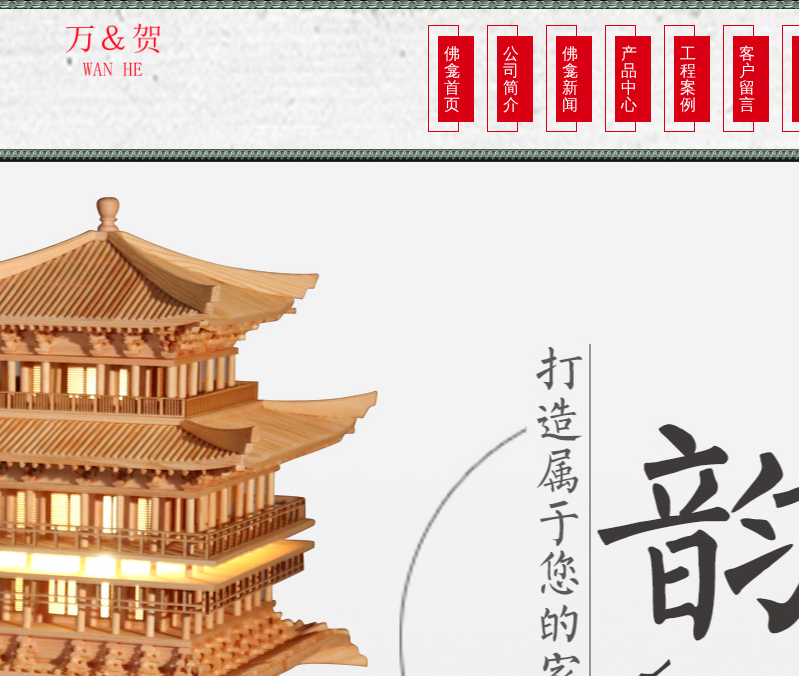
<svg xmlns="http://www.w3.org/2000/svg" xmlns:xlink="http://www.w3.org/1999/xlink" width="799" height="676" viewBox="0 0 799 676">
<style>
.cls-1{font:500 16px WenQuanYi Zen Hei;fill:#ffffff}
</style>
<rect width="100%" height="100%" fill="#ffffff"/>
<image xlink:href="image0.png" x="0" y="0" width="799" height="9"/>
<image xlink:href="image1.png" x="0" y="9" width="799" height="140"/>
<image xlink:href="image2.png" x="65" y="23" width="96" height="53"/>
<image xlink:href="image3.png" x="428" y="25" width="46" height="107"/>
<image xlink:href="image4.png" x="487" y="25" width="46" height="107"/>
<image xlink:href="image5.png" x="546" y="25" width="46" height="107"/>
<image xlink:href="image6.png" x="605" y="25" width="46" height="107"/>
<image xlink:href="image7.png" x="664" y="25" width="46" height="107"/>
<image xlink:href="image8.png" x="723" y="25" width="46" height="107"/>
<image xlink:href="image9.png" x="782" y="25" width="17" height="107"/>
<image xlink:href="image10.png" x="0" y="149" width="799" height="13"/>
<image xlink:href="image11.png" x="0" y="162" width="799" height="514"/>
<text class="cls-1"><tspan x="444" y="59">佛</tspan><tspan x="444" y="76">龛</tspan><tspan x="444" y="93">首</tspan><tspan x="444" y="110">页</tspan></text>
<text class="cls-1"><tspan x="503" y="59">公</tspan><tspan x="503" y="76">司</tspan><tspan x="503" y="93">简</tspan><tspan x="503" y="110">介</tspan></text>
<text class="cls-1"><tspan x="562" y="59">佛</tspan><tspan x="562" y="76">龛</tspan><tspan x="562" y="93">新</tspan><tspan x="562" y="110">闻</tspan></text>
<text class="cls-1"><tspan x="621" y="59">产</tspan><tspan x="621" y="76">品</tspan><tspan x="621" y="93">中</tspan><tspan x="621" y="110">心</tspan></text>
<text class="cls-1"><tspan x="680" y="59">工</tspan><tspan x="680" y="76">程</tspan><tspan x="680" y="93">案</tspan><tspan x="680" y="110">例</tspan></text>
<text class="cls-1"><tspan x="739" y="59">客</tspan><tspan x="739" y="76">户</tspan><tspan x="739" y="93">留</tspan><tspan x="739" y="110">言</tspan></text>
</svg>
